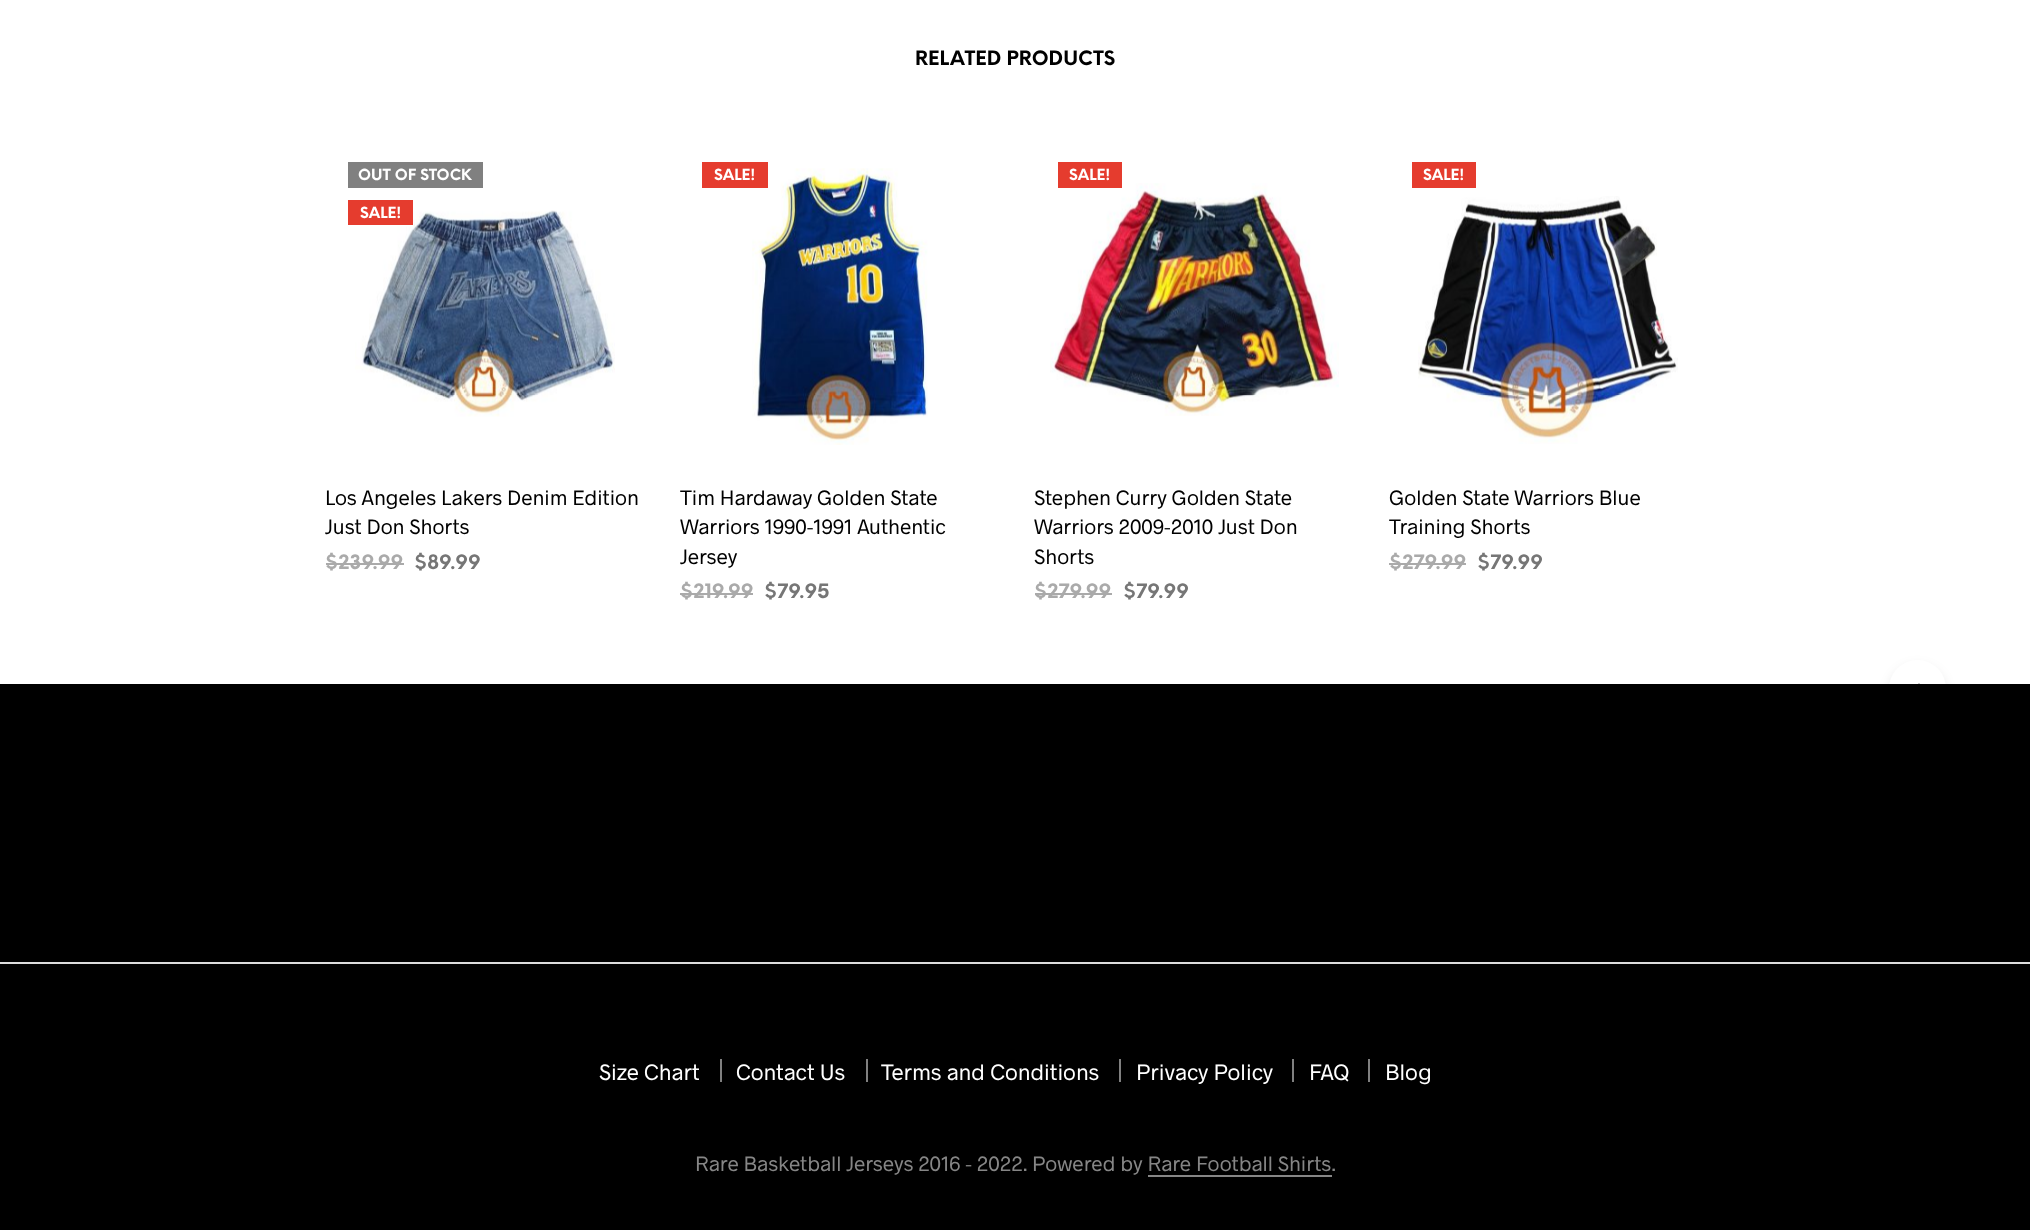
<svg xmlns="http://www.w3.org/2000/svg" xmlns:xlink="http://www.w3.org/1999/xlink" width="2030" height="1230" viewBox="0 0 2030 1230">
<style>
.cls-1{font:bold 19.5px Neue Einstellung;fill:#000000}
.cls-2{font:bold 15px Neue Einstellung;fill:#ffffff}
.cls-3{font:21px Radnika;fill:#000000}
.cls-4{font:bold 19.5px Neue Einstellung;fill:#aaaaaa}
.cls-5{font:bold 19.5px Neue Einstellung;fill:#767676}
.cls-6{font:22.5px Radnika;fill:#ffffff}
.cls-7{font:21px Radnika;fill:#868686}
</style>
<rect width="100%" height="100%" fill="#ffffff"/>
<rect fill="#808080" x="348" y="162" width="135" height="26"/>
<image xlink:href="image0.png" x="355" y="210" width="260" height="207"/>
<rect fill="#e53c2e" x="348" y="200" width="65" height="25"/>
<rect fill="#aaaaaa" x="326" y="563" width="78" height="2"/>
<image xlink:href="image1.png" x="752" y="168" width="176" height="277"/>
<rect fill="#e53c2e" x="702" y="162" width="66" height="26"/>
<rect fill="#aaaaaa" x="680" y="593" width="73" height="2"/>
<image xlink:href="image2.png" x="1050" y="183" width="289" height="233"/>
<rect fill="#e53c2e" x="1058" y="162" width="64" height="26"/>
<rect fill="#aaaaaa" x="1035" y="593" width="77" height="2"/>
<rect fill="#e53c2e" x="1412" y="162" width="64" height="26"/>
<image xlink:href="image3.png" x="1418" y="196" width="260" height="248"/>
<rect fill="#aaaaaa" x="1389" y="563" width="77" height="2"/>
<rect fill="#000000" fill-opacity="0.1" filter="blur(6px)" x="1889" y="666" width="57" height="57" rx="28.5"/>
<circle fill="#ffffff" cx="1917.5" cy="688.5" r="28.5"/>
<image xlink:href="image4.png" x="1918" y="683" width="2" height="1"/>
<rect fill="#000000" x="0" y="684" width="2030" height="546"/>
<rect fill="#dddddd" x="0" y="962" width="2030" height="2"/>
<rect fill="#808080" x="720" y="1059" width="2" height="23"/>
<rect fill="#808080" x="866" y="1059" width="2" height="23"/>
<rect fill="#808080" x="1119" y="1059" width="2" height="23"/>
<rect fill="#808080" x="1292" y="1059" width="2" height="23"/>
<rect fill="#808080" x="1368" y="1059" width="2" height="23"/>
<rect fill="#868686" x="1148" y="1175" width="184" height="2"/>
<text class="cls-1" x="915" y="65">RELATED PRODUCTS</text>
<text class="cls-2" x="358" y="180">OUT OF STOCK</text>
<text class="cls-2" x="360" y="218">SALE!</text>
<text class="cls-3"><tspan x="325" y="505">Los Angeles Lakers Denim Edition</tspan><tspan x="325" y="534">Just Don Shorts</tspan></text>
<text class="cls-4" x="325" y="569">$239.99</text>
<text class="cls-5" x="414" y="569">$89.99</text>
<text class="cls-2" x="714" y="180">SALE!</text>
<text class="cls-3"><tspan x="680" y="505">Tim Hardaway Golden State</tspan><tspan x="680" y="534">Warriors 1990-1991 Authentic</tspan><tspan x="680" y="564">Jersey</tspan></text>
<text class="cls-4" x="680" y="598">$219.99</text>
<text class="cls-5" x="764" y="598">$79.95</text>
<text class="cls-2" x="1069" y="180">SALE!</text>
<text class="cls-3"><tspan x="1034" y="505">Stephen Curry Golden State</tspan><tspan x="1034" y="534">Warriors 2009-2010 Just Don</tspan><tspan x="1034" y="564">Shorts</tspan></text>
<text class="cls-4" x="1034" y="598">$279.99</text>
<text class="cls-5" x="1123" y="598">$79.99</text>
<text class="cls-2" x="1423" y="180">SALE!</text>
<text class="cls-3"><tspan x="1389" y="505">Golden State Warriors Blue</tspan><tspan x="1389" y="534">Training Shorts</tspan></text>
<text class="cls-4" x="1389" y="569">$279.99</text>
<text class="cls-5" x="1477" y="569">$79.99</text>
<text class="cls-6" x="599" y="1080">Size Chart</text>
<text class="cls-6" x="736" y="1080">Contact Us</text>
<text class="cls-6" x="881" y="1080">Terms and Conditions</text>
<text class="cls-6" x="1136" y="1080">Privacy Policy</text>
<text class="cls-6" x="1309" y="1080">FAQ</text>
<text class="cls-6" x="1385" y="1080">Blog</text>
<text class="cls-7" x="695" y="1171">Rare Basketball Jerseys 2016 - 2022. Powered by Rare Football Shirts.</text>
</svg>
